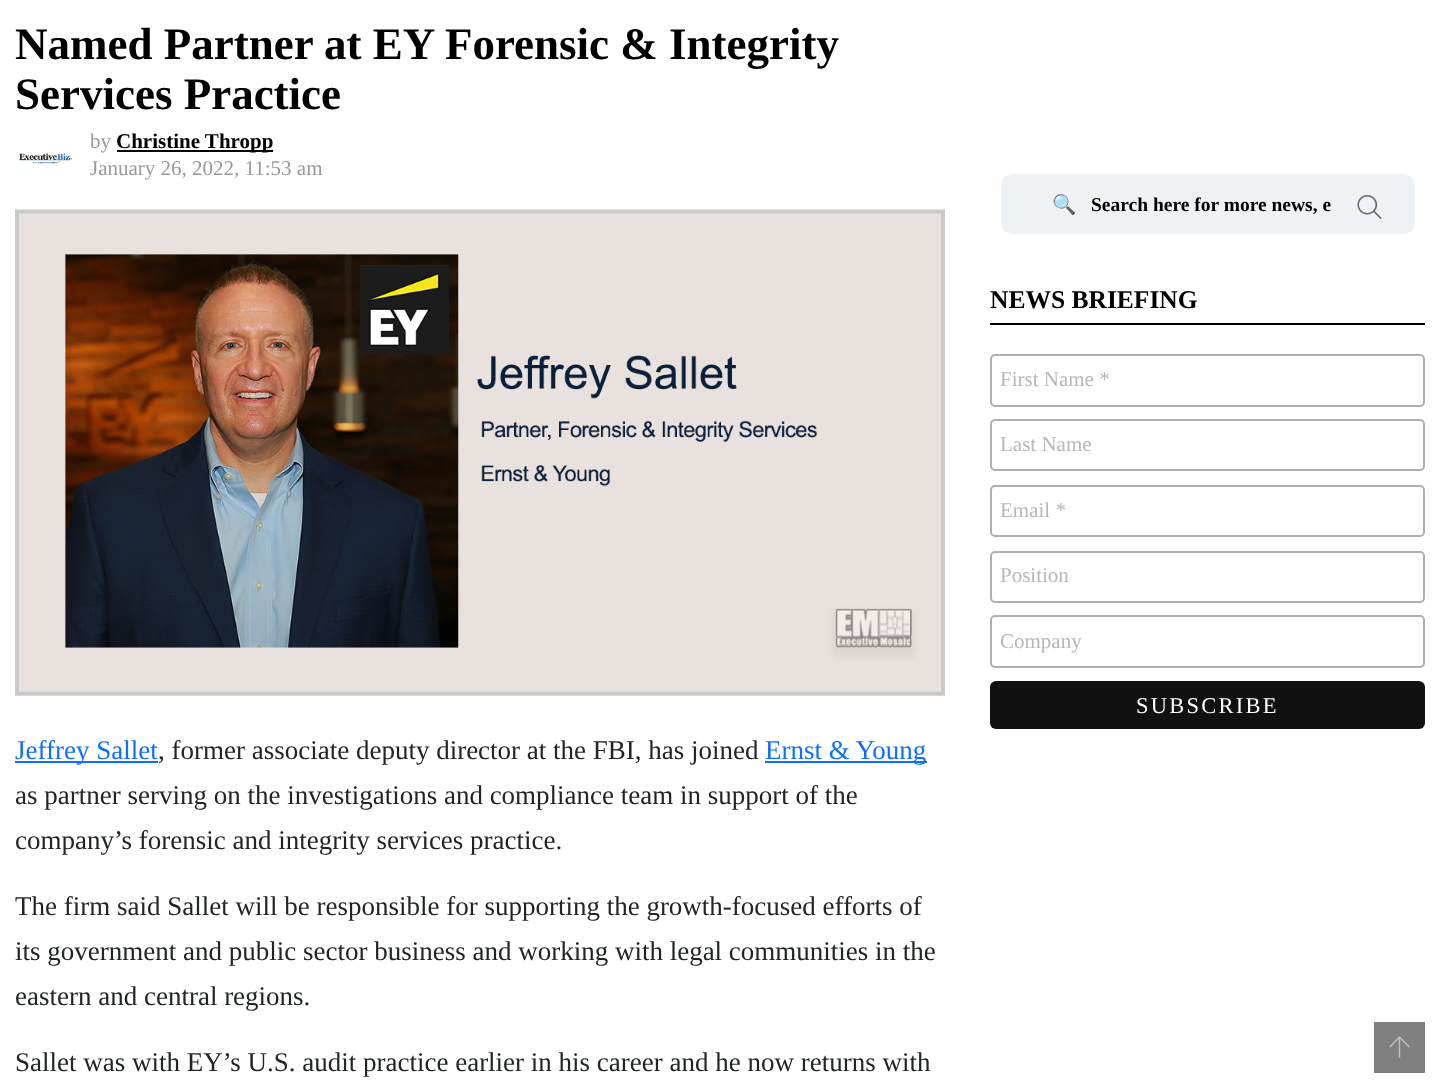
<svg xmlns="http://www.w3.org/2000/svg" xmlns:xlink="http://www.w3.org/1999/xlink" width="1440" height="1087" viewBox="0 0 1440 1087">
<style>
.cls-1{font:bold 45px Liberation Serif;fill:#000000}
.cls-2{font:21px Liberation Serif;fill:#999999}
.cls-3{font:bold 21px Liberation Serif;fill:#000000}
.cls-4{font:27px Liberation Serif;fill:#0d6efd}
.cls-5{font:27px Liberation Serif;fill:#212529}
.cls-6{font:bold 19.5px Noto Color Emoji;fill:#000000}
.cls-7{font:bold 19.5px Liberation Serif;fill:#000000}
.cls-8{font:bold 25.5px Liberation Serif;fill:#000000}
.cls-9{font:21px Liberation Serif;fill:#b6b7b8}
.cls-10{font:22.5px Liberation Serif;letter-spacing:2.25px;fill:#ffffff}
</style>
<defs>
<clipPath id="clip1"><rect x="1052" y="194" width="280" height="24"/></clipPath>
</defs>
<rect width="100%" height="100%" fill="#ffffff"/>
<rect fill="#000000" x="117" y="150" width="156" height="2"/>
<image xlink:href="image0.png" x="19" y="153" width="53" height="11"/>
<rect fill="#e6e6e6" x="15" y="695" width="930" height="1"/>
<image xlink:href="image1.png" x="15" y="209" width="930" height="487"/>
<rect fill="#0d6efd" x="15" y="761" width="143" height="2"/>
<rect fill="#0d6efd" x="765" y="761" width="162" height="2"/>
<rect fill="#eff2f5" x="1001" y="174" width="414" height="60" rx="12"/>
<image xlink:href="image2.png" x="1357" y="195" width="25" height="24"/>
<rect fill="#000000" x="990" y="323" width="435" height="2"/>
<rect fill="none" stroke="#abb0b2" stroke-width="2" x="991" y="355" width="433" height="51" rx="4"/>
<rect fill="none" stroke="#abb0b2" stroke-width="2" x="991" y="420" width="433" height="50" rx="4"/>
<rect fill="none" stroke="#abb0b2" stroke-width="2" x="991" y="486" width="433" height="50" rx="4"/>
<rect fill="none" stroke="#abb0b2" stroke-width="2" x="991" y="552" width="433" height="50" rx="4"/>
<rect fill="none" stroke="#abb0b2" stroke-width="2" x="991" y="616" width="433" height="51" rx="4"/>
<rect fill="#111111" x="990" y="681" width="435" height="48" rx="6"/>
<rect fill="#808080" x="1374" y="1022" width="51" height="51"/>
<image xlink:href="image3.png" x="1389" y="1036" width="21" height="22"/>
<text class="cls-1"><tspan x="15" y="59">Named Partner at EY Forensic &amp; Integrity</tspan><tspan x="15" y="109">Services Practice</tspan></text>
<text class="cls-2" x="90" y="148">by</text>
<text class="cls-3" x="116" y="148">Christine Thropp</text>
<text class="cls-2" x="90" y="175">January 26, 2022, 11:53 am</text>
<text class="cls-4" x="15" y="759">Jeffrey Sallet</text>
<text class="cls-5" x="158" y="759">, former associate deputy director at the FBI, has joined</text>
<text class="cls-4" x="765" y="759">Ernst &amp; Young</text>
<text class="cls-5"><tspan x="15" y="804">as partner serving on the investigations and compliance team in support of the</tspan><tspan x="15" y="849">company’s forensic and integrity services practice.</tspan></text>
<text class="cls-5"><tspan x="15" y="915">The firm said Sallet will be responsible for supporting the growth-focused efforts of</tspan><tspan x="15" y="960">its government and public sector business and working with legal communities in the</tspan><tspan x="15" y="1005">eastern and central regions.</tspan></text>
<text class="cls-5" x="15" y="1071">Sallet was with EY’s U.S. audit practice earlier in his career and he now returns with</text>
<g clip-path="url(#clip1)">
<text class="cls-6" x="1052" y="211">🔍</text>
</g>
<text class="cls-7" x="1091" y="211">Search here for more news, e</text>
<text class="cls-8" x="990" y="308">NEWS BRIEFING</text>
<text class="cls-9" x="1000" y="386">First Name *</text>
<text class="cls-9" x="1000" y="451">Last Name</text>
<text class="cls-9" x="1000" y="517">Email *</text>
<text class="cls-9" x="1000" y="582">Position</text>
<text class="cls-9" x="1000" y="648">Company</text>
<text class="cls-10" x="1136" y="713">SUBSCRIBE</text>
</svg>
